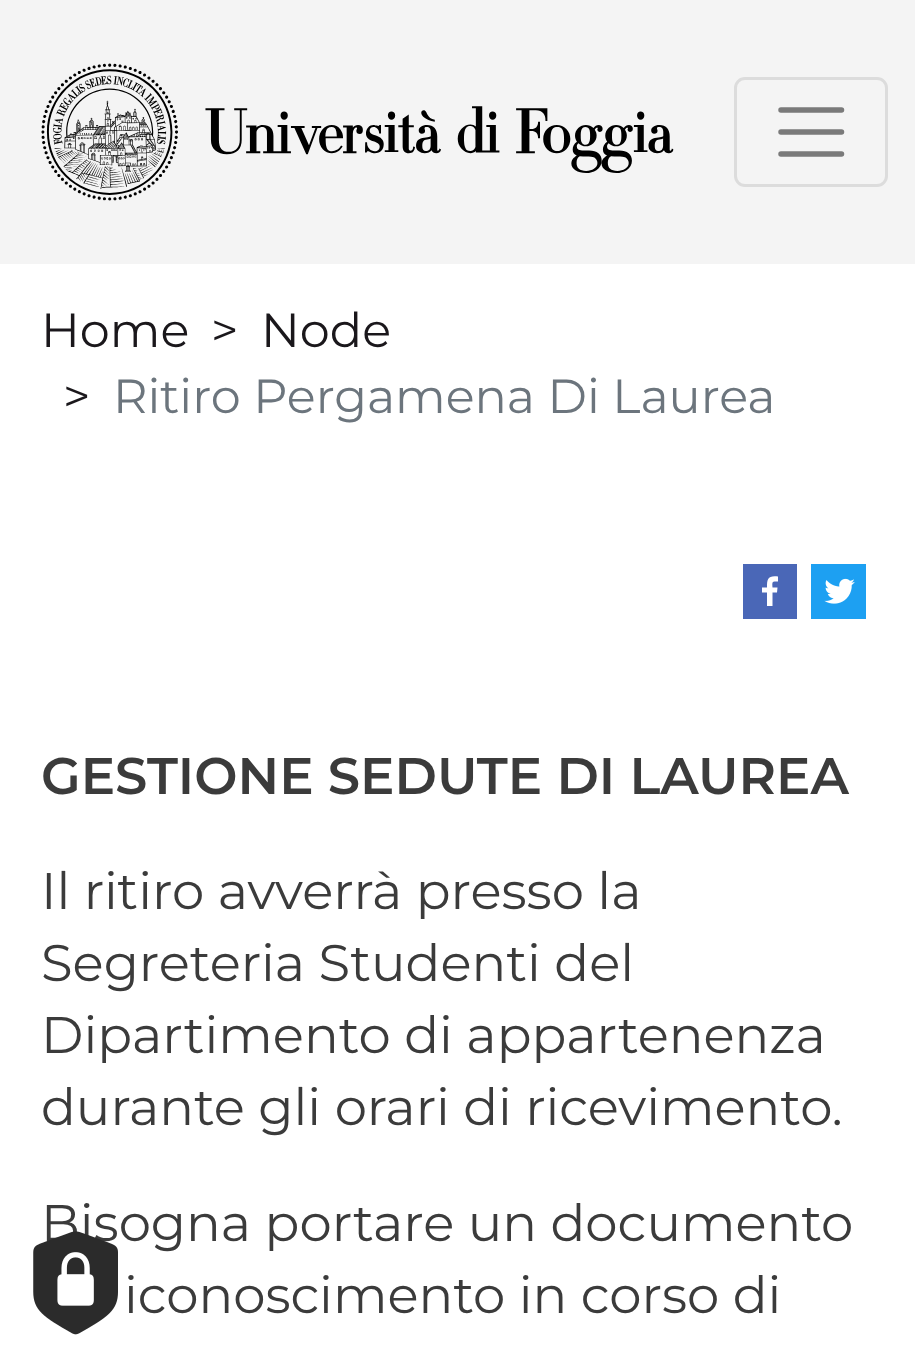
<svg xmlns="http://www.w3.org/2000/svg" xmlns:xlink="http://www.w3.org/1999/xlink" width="915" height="1356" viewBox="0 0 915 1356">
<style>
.cls-1{font:100 47.75px Montserrat;fill:#1a171b}
.cls-2{font:100 47.75px Montserrat;fill:#6c757d}
.cls-3{font:100 51.4px 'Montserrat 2';fill:#3b3b3b}
.cls-4{font:100 51.4px Montserrat;fill:#3b3b3b}
</style>
<rect width="100%" height="100%" fill="#ffffff"/>
<rect fill="#f4f4f4" x="0" y="0" width="915" height="264"/>
<image xlink:href="image0.png" x="41" y="63" width="633" height="138"/>
<rect fill="none" stroke="#dcdcdc" stroke-width="3" x="735.5" y="78.5" width="151" height="107" rx="9.5"/>
<path fill="none" stroke="#7a7a7a" stroke-width="5.5" stroke-linecap="round" d="M781 110H841.5M781 132H841.5M781 154H841.5"/>
<rect fill="#4a67b7" x="743" y="564" width="54" height="55"/>
<path fill="#ffffff" fill-rule="evenodd" d="M774.5 581.5H778V576.5C768 575.5 767 578.5 767 587.5H762V592.5H767V606H772.5V592.5H777L777.5 587.5H772.5C772.5 585 771.5 581.5 774.5 581.5Z"/>
<image xlink:href="image1.png" x="811" y="564" width="55" height="55"/>
<text class="cls-1" x="41" y="347">Home</text>
<text class="cls-1" x="211" y="347">&gt;</text>
<text class="cls-1" x="261" y="347">Node</text>
<text class="cls-1" x="63" y="413">&gt;</text>
<text class="cls-2" x="113" y="413">Ritiro Pergamena Di Laurea</text>
<text class="cls-3" x="41" y="794">GESTIONE SEDUTE DI LAUREA</text>
<text class="cls-4"><tspan x="41" y="909">Il ritiro avverrà presso la</tspan><tspan x="41" y="981">Segreteria Studenti del</tspan><tspan x="41" y="1053">Dipartimento di appartenenza</tspan><tspan x="41" y="1125">durante gli orari di ricevimento.</tspan></text>
<text class="cls-4" x="41" y="1241">Bisogna portare un documento</text>
<text class="cls-4" x="124" y="1313">iconoscimento in corso di</text>
<image xlink:href="image2.png" x="33" y="1231" width="85" height="104"/>
</svg>
